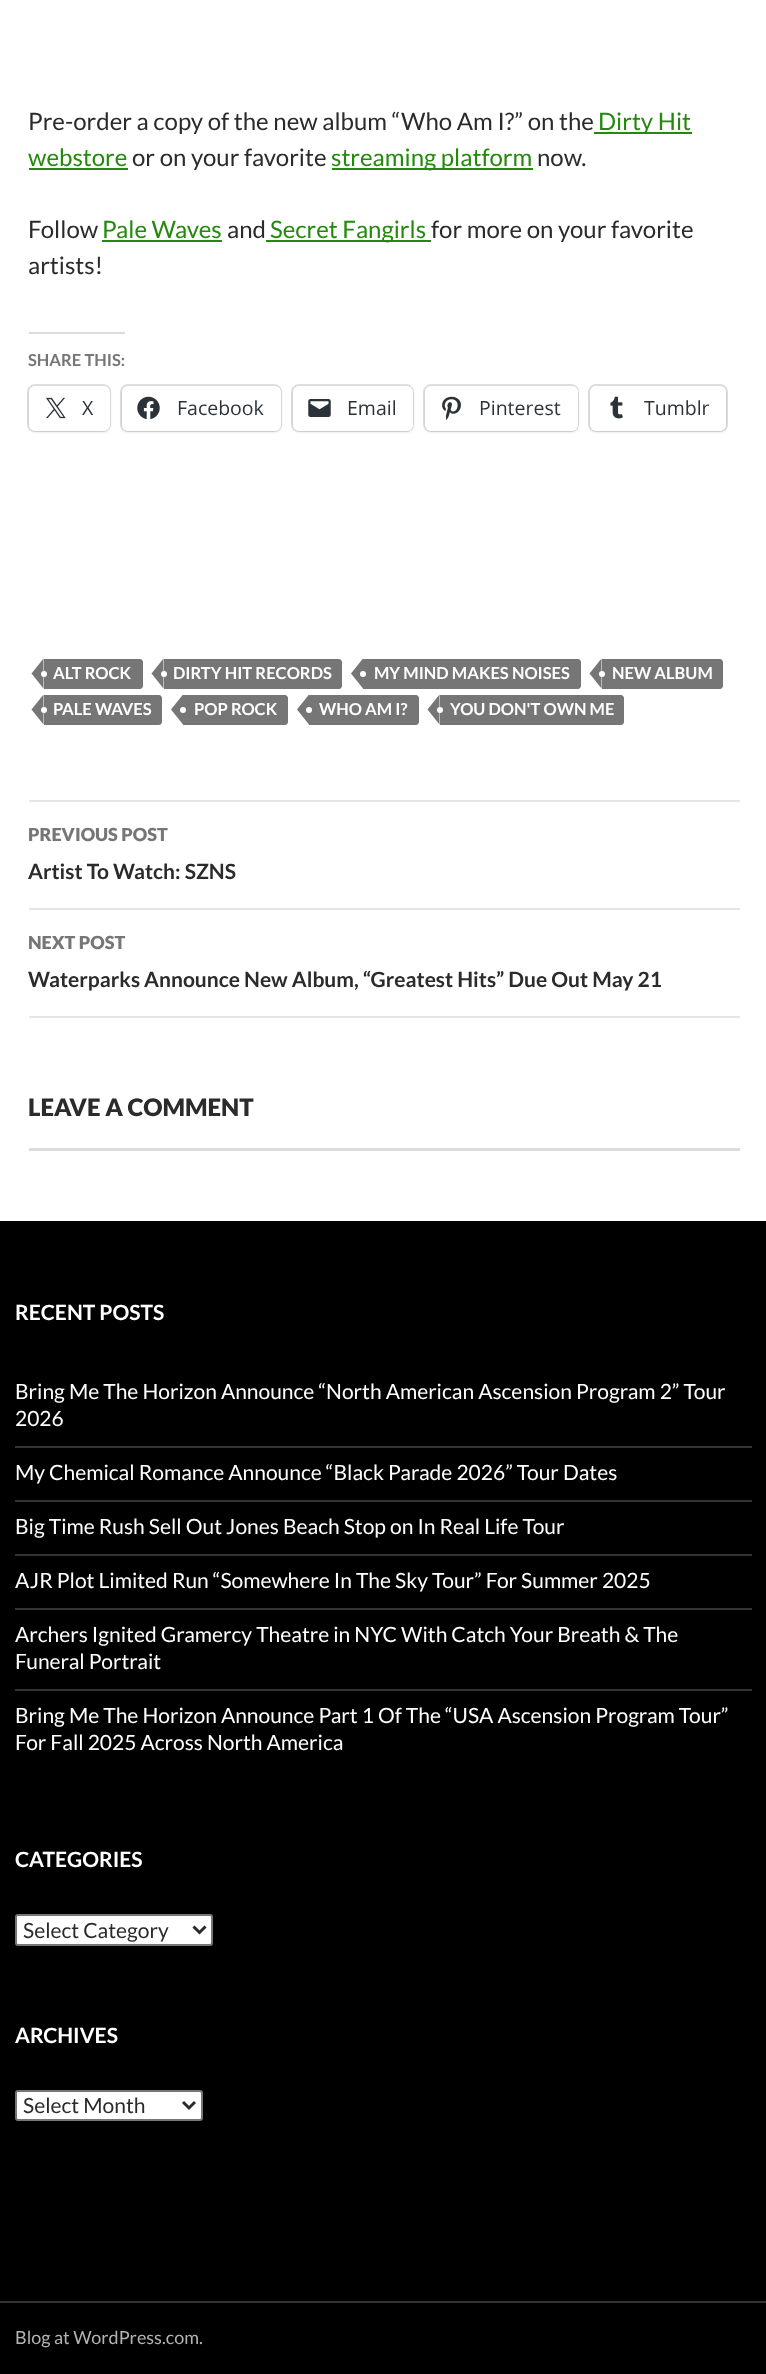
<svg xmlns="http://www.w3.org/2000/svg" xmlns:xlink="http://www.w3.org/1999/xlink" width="766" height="2374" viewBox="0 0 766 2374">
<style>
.cls-1{font:24px Lato;fill:#2b2b2b}
.cls-2{font:24px Lato;fill:#24890d}
.cls-3{font:bold 16.5px Lato;fill:#767676}
.cls-4{font:19.5px Open Sans;fill:#2c3338}
.cls-5{font:bold 16.5px Lato;fill:#ffffff}
.cls-6{font:900 18px Lato;fill:#767676}
.cls-7{font:bold 21px Lato;fill:#2b2b2b}
.cls-8{font:900 24px Lato;fill:#2b2b2b}
.cls-9{font:bold 21px Lato;fill:#ffffff}
.cls-10{font:21px Lato;fill:#ffffff}
.cls-11{font:21px Lato;fill:#2b2b2b}
.cls-12{font:18px Lato;fill:#b3b3b3}
</style>
<rect width="100%" height="100%" fill="#ffffff"/>
<rect fill="#24890d" x="594" y="132" width="98" height="2"/>
<rect fill="#24890d" x="29" y="168" width="99" height="2"/>
<rect fill="#24890d" x="332" y="168" width="201" height="2"/>
<rect fill="#24890d" x="102" y="240" width="120" height="2"/>
<rect fill="#24890d" x="266" y="240" width="165" height="2"/>
<rect fill="#dcdcde" x="29" y="332" width="96" height="2"/>
<rect fill="none" stroke="#e0e0e0" stroke-width="2" x="28" y="385" width="82" height="46" rx="7"/>
<rect fill="#000000" fill-opacity="0.12" filter="blur(1.5px)" x="29" y="387" width="81" height="45" rx="6"/>
<rect fill="#ffffff" x="29" y="386" width="81" height="45" rx="6"/>
<image xlink:href="image0.png" x="46" y="397" width="20" height="22"/>
<rect fill="none" stroke="#e0e0e0" stroke-width="2" x="121" y="385" width="160" height="46" rx="7"/>
<rect fill="#000000" fill-opacity="0.12" filter="blur(1.5px)" x="122" y="387" width="159" height="45" rx="6"/>
<rect fill="#ffffff" x="122" y="386" width="159" height="45" rx="6"/>
<image xlink:href="image1.png" x="137" y="396" width="23" height="24"/>
<rect fill="none" stroke="#e0e0e0" stroke-width="2" x="292" y="385" width="121" height="46" rx="7"/>
<rect fill="#000000" fill-opacity="0.12" filter="blur(1.5px)" x="293" y="387" width="120" height="45" rx="6"/>
<rect fill="#ffffff" x="293" y="386" width="120" height="45" rx="6"/>
<image xlink:href="image2.png" x="308" y="399" width="23" height="18"/>
<rect fill="none" stroke="#e0e0e0" stroke-width="2" x="424" y="385" width="154" height="46" rx="7"/>
<rect fill="#000000" fill-opacity="0.12" filter="blur(1.5px)" x="425" y="387" width="153" height="45" rx="6"/>
<rect fill="#ffffff" x="425" y="386" width="153" height="45" rx="6"/>
<image xlink:href="image3.png" x="442" y="396" width="19" height="24"/>
<rect fill="none" stroke="#e0e0e0" stroke-width="2" x="589" y="385" width="138" height="46" rx="7"/>
<rect fill="#000000" fill-opacity="0.12" filter="blur(1.5px)" x="590" y="387" width="136" height="45" rx="6"/>
<rect fill="#ffffff" x="590" y="386" width="136" height="45" rx="6"/>
<image xlink:href="image4.png" x="610" y="396" width="13" height="23"/>
<path fill="#767676" d="M44 659H140C141.5 659 143 660.5 143 662V686C143 687.5 141.5 689 140 689H44Z"/>
<path fill="#767676" d="M43.5 658.5V688.5L31.5 673.5Z"/>
<circle fill="#ffffff" cx="44" cy="674" r="3"/>
<path fill="#767676" d="M164 659H339C340.5 659 342 660.5 342 662V686C342 687.5 340.5 689 339 689H164Z"/>
<path fill="#767676" d="M163.5 658.5V688.5L151.5 673.5Z"/>
<circle fill="#ffffff" cx="164" cy="674" r="3"/>
<path fill="#767676" d="M363 659H578C579.5 659 581 660.5 581 662V686C581 687.5 579.5 689 578 689H363Z"/>
<path fill="#767676" d="M363 658.5V688.5L351 673.5Z"/>
<circle fill="#ffffff" cx="363" cy="674" r="3"/>
<path fill="#767676" d="M602 659H720C721.5 659 723 660.5 723 662V686C723 687.5 721.5 689 720 689H602Z"/>
<path fill="#767676" d="M601.5 658.5V688.5L589.5 673.5Z"/>
<circle fill="#ffffff" cx="602" cy="674" r="3"/>
<path fill="#767676" d="M44 695H159C160.5 695 162 696.5 162 698V722C162 723.5 160.5 725 159 725H44Z"/>
<path fill="#767676" d="M43.5 694.5V724.5L31.5 709.5Z"/>
<circle fill="#ffffff" cx="44" cy="710" r="3"/>
<path fill="#767676" d="M183 695H285C286.5 695 288 696.5 288 698V722C288 723.5 286.5 725 285 725H183Z"/>
<path fill="#767676" d="M183 694.5V724.5L171 709.5Z"/>
<circle fill="#ffffff" cx="183" cy="710" r="3"/>
<path fill="#767676" d="M309 695H416C417.5 695 419 696.5 419 698V722C419 723.5 417.5 725 416 725H309Z"/>
<path fill="#767676" d="M309 694.5V724.5L297 709.5Z"/>
<circle fill="#ffffff" cx="309" cy="710" r="3"/>
<path fill="#767676" d="M440 695H621C622.5 695 624 696.5 624 698V722C624 723.5 622.5 725 621 725H440Z"/>
<path fill="#767676" d="M439.5 694.5V724.5L427.5 709.5Z"/>
<circle fill="#ffffff" cx="440" cy="710" r="3"/>
<rect fill="#e6e6e6" x="29" y="800" width="711" height="2"/>
<rect fill="#e6e6e6" x="29" y="908" width="711" height="2"/>
<rect fill="#e6e6e6" x="29" y="1016" width="711" height="2"/>
<rect fill="#dcdcde" x="29" y="1148" width="711" height="3"/>
<rect fill="#000000" x="0" y="1221" width="766" height="1080"/>
<rect fill="#333333" x="0" y="2301" width="766" height="2"/>
<rect fill="#333333" x="15" y="1446" width="737" height="2"/>
<rect fill="#333333" x="15" y="1500" width="737" height="2"/>
<rect fill="#333333" x="15" y="1554" width="737" height="2"/>
<rect fill="#333333" x="15" y="1608" width="737" height="2"/>
<rect fill="#333333" x="15" y="1689" width="737" height="2"/>
<rect fill="#ffffff" stroke="#767676" stroke-width="2" x="16" y="1915" width="196" height="30" rx="2"/>
<path fill="none" stroke="#2b2b2b" stroke-width="3" d="M193.5 1926.5L199.5 1932.5L205.5 1926.5"/>
<rect fill="#ffffff" stroke="#767676" stroke-width="2" x="16" y="2091" width="186" height="29" rx="2"/>
<path fill="none" stroke="#2b2b2b" stroke-width="3" d="M183 2102L189 2108L195 2102"/>
<rect fill="#000000" x="0" y="2303" width="766" height="71"/>
<text class="cls-1" x="28" y="130">Pre-order a copy of the new album “Who Am I?” on the</text>
<text class="cls-2" x="598" y="130">Dirty Hit</text>
<text class="cls-2" x="28" y="166">webstore</text>
<text class="cls-1" x="132" y="166">or on your favorite</text>
<text class="cls-2" x="331" y="166">streaming platform</text>
<text class="cls-1" x="537" y="166">now.</text>
<text class="cls-1" x="28" y="238">Follow</text>
<text class="cls-2" x="102" y="238">Pale Waves</text>
<text class="cls-1" x="227" y="238">and</text>
<text class="cls-2" x="270" y="238">Secret Fangirls</text>
<text class="cls-1" x="431" y="238">for more on your favorite</text>
<text class="cls-1" x="28" y="274">artists!</text>
<text class="cls-3" x="28" y="366">SHARE THIS:</text>
<text class="cls-4" x="82" y="415">X</text>
<text class="cls-4" x="177" y="415">Facebook</text>
<text class="cls-4" x="347" y="415">Email</text>
<text class="cls-4" x="479" y="415">Pinterest</text>
<text class="cls-4" x="644" y="415">Tumblr</text>
<text class="cls-5" x="53" y="679">ALT ROCK</text>
<text class="cls-5" x="173" y="679">DIRTY HIT RECORDS</text>
<text class="cls-5" x="374" y="679">MY MIND MAKES NOISES</text>
<text class="cls-5" x="612" y="679">NEW ALBUM</text>
<text class="cls-5" x="53" y="715">PALE WAVES</text>
<text class="cls-5" x="194" y="715">POP ROCK</text>
<text class="cls-5" x="319" y="715">WHO AM I?</text>
<text class="cls-5" x="450" y="715">YOU DON'T OWN ME</text>
<text class="cls-6" x="28" y="841">PREVIOUS POST</text>
<text class="cls-7" x="28" y="879">Artist To Watch: SZNS</text>
<text class="cls-6" x="28" y="949">NEXT POST</text>
<text class="cls-7" x="28" y="987">Waterparks Announce New Album, “Greatest Hits” Due Out May 21</text>
<text class="cls-8" x="28" y="1116">LEAVE A COMMENT</text>
<text class="cls-9" x="15" y="1320">RECENT POSTS</text>
<text class="cls-10"><tspan x="15" y="1399">Bring Me The Horizon Announce “North American Ascension Program 2” Tour</tspan><tspan x="15" y="1426">2026</tspan></text>
<text class="cls-10" x="15" y="1480">My Chemical Romance Announce “Black Parade 2026” Tour Dates</text>
<text class="cls-10" x="15" y="1534">Big Time Rush Sell Out Jones Beach Stop on In Real Life Tour</text>
<text class="cls-10" x="15" y="1588">AJR Plot Limited Run “Somewhere In The Sky Tour” For Summer 2025</text>
<text class="cls-10"><tspan x="15" y="1642">Archers Ignited Gramercy Theatre in NYC With Catch Your Breath &amp; The</tspan><tspan x="15" y="1669">Funeral Portrait</tspan></text>
<text class="cls-10"><tspan x="15" y="1723">Bring Me The Horizon Announce Part 1 Of The “USA Ascension Program Tour”</tspan><tspan x="15" y="1750">For Fall 2025 Across North America</tspan></text>
<text class="cls-9" x="15" y="1867">CATEGORIES</text>
<text class="cls-11" x="23" y="1938">Select Category</text>
<text class="cls-9" x="15" y="2043">ARCHIVES</text>
<text class="cls-11" x="23" y="2113">Select Month</text>
<text class="cls-12" x="15" y="2344">Blog at WordPress.com.</text>
</svg>
